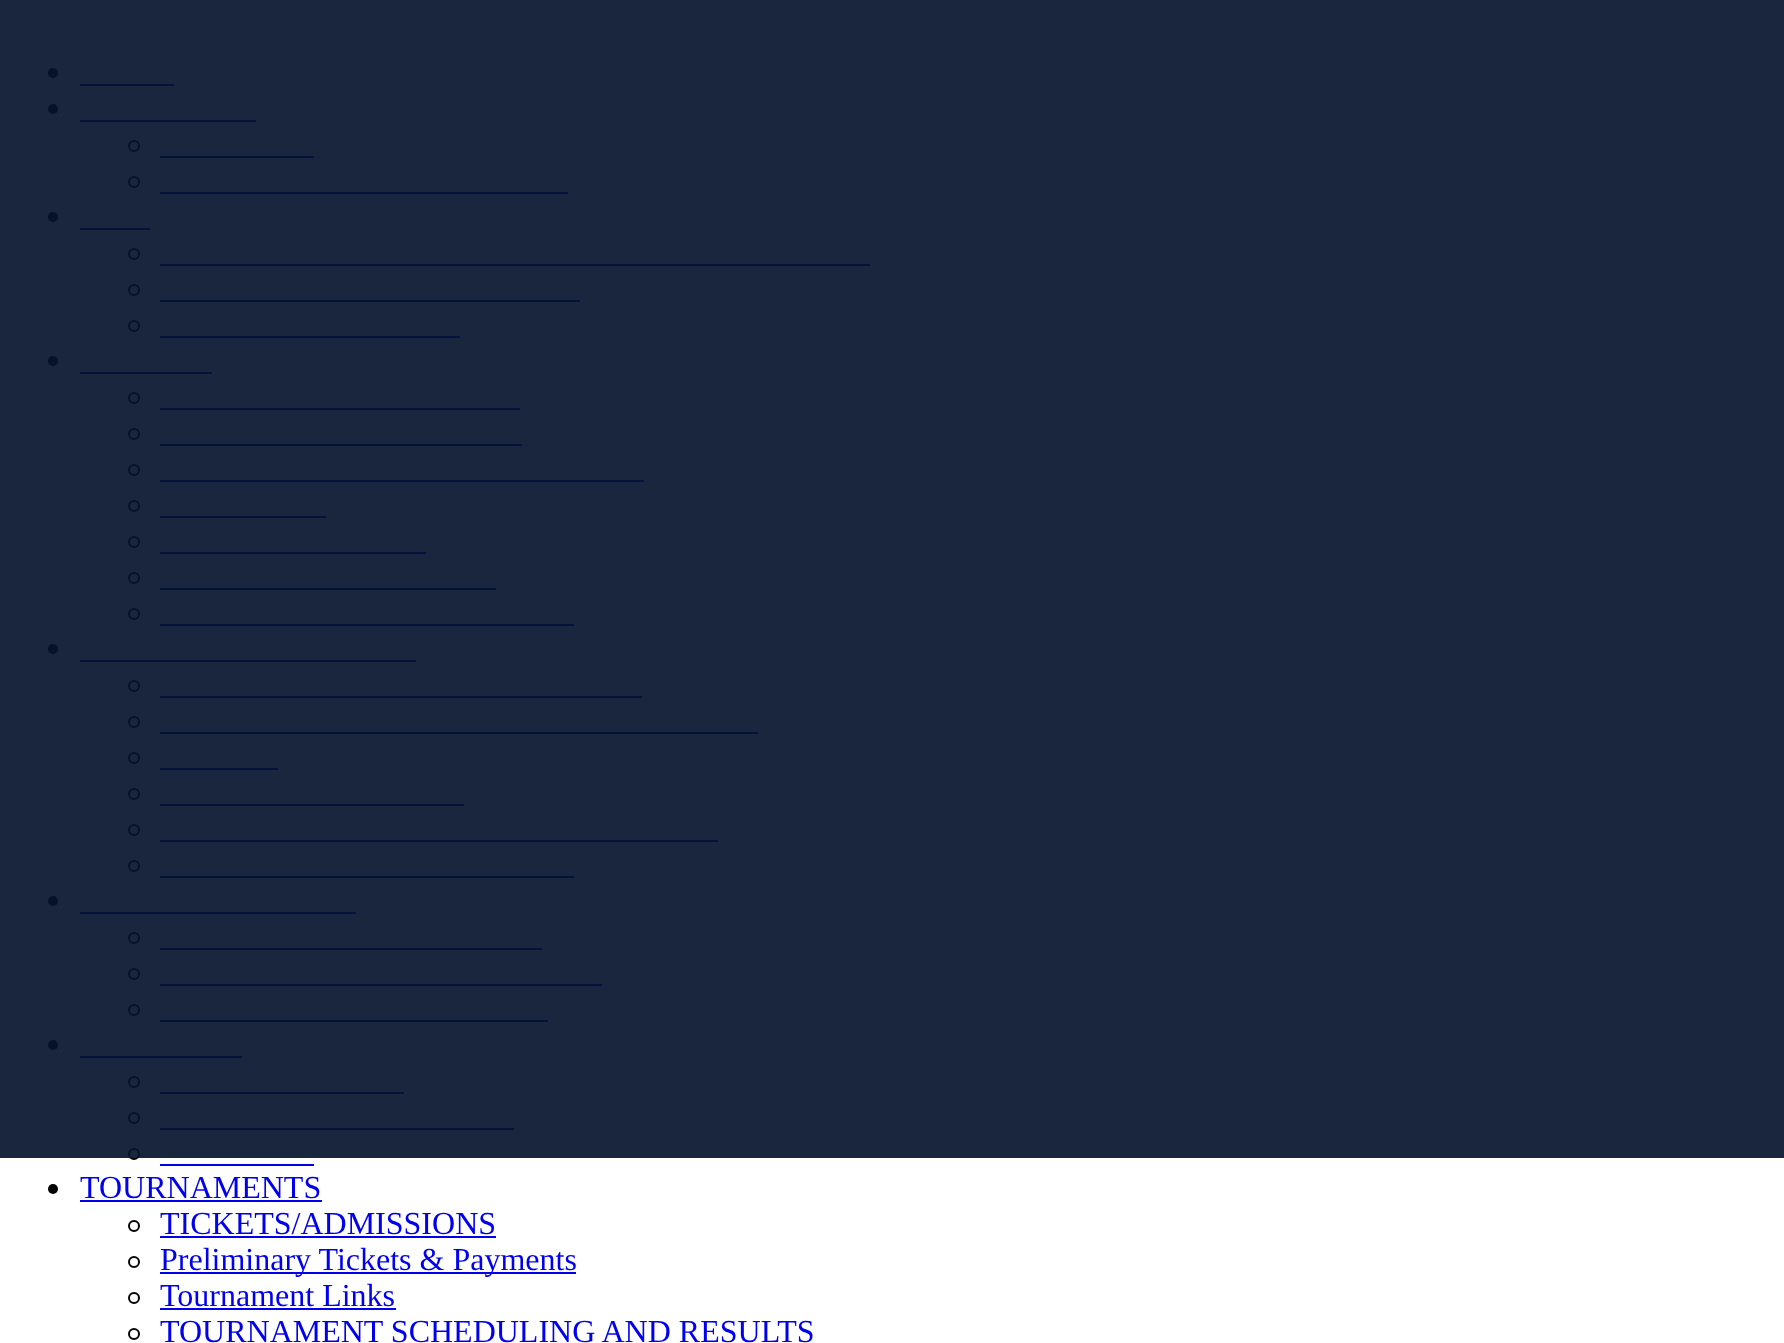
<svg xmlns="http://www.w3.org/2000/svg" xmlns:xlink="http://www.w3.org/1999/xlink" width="1784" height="1343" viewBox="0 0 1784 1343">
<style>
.cls-1{font:32px Liberation Serif;fill:#0000ee}
</style>
<rect width="100%" height="100%" fill="#ffffff"/>
<circle fill="#000000" cx="53" cy="73" r="5"/>
<rect fill="#0000ee" x="80" y="84" width="94" height="2"/>
<circle fill="#000000" cx="53" cy="109" r="5"/>
<rect fill="#0000ee" x="80" y="120" width="176" height="2"/>
<circle fill="none" stroke="#000000" stroke-width="2" cx="134" cy="146" r="5"/>
<rect fill="#0000ee" x="160" y="156" width="154" height="2"/>
<circle fill="none" stroke="#000000" stroke-width="2" cx="134" cy="182" r="5"/>
<rect fill="#0000ee" x="160" y="192" width="408" height="2"/>
<circle fill="#000000" cx="53" cy="217" r="5"/>
<rect fill="#0000ee" x="80" y="228" width="70" height="2"/>
<circle fill="none" stroke="#000000" stroke-width="2" cx="134" cy="254" r="5"/>
<rect fill="#0000ee" x="160" y="264" width="710" height="2"/>
<circle fill="none" stroke="#000000" stroke-width="2" cx="134" cy="290" r="5"/>
<rect fill="#0000ee" x="160" y="300" width="420" height="2"/>
<circle fill="none" stroke="#000000" stroke-width="2" cx="134" cy="326" r="5"/>
<rect fill="#0000ee" x="160" y="336" width="300" height="2"/>
<circle fill="#000000" cx="53" cy="361" r="5"/>
<rect fill="#0000ee" x="80" y="372" width="132" height="2"/>
<circle fill="none" stroke="#000000" stroke-width="2" cx="134" cy="398" r="5"/>
<rect fill="#0000ee" x="160" y="408" width="360" height="2"/>
<circle fill="none" stroke="#000000" stroke-width="2" cx="134" cy="434" r="5"/>
<rect fill="#0000ee" x="160" y="444" width="362" height="2"/>
<circle fill="none" stroke="#000000" stroke-width="2" cx="134" cy="470" r="5"/>
<rect fill="#0000ee" x="160" y="480" width="484" height="2"/>
<circle fill="none" stroke="#000000" stroke-width="2" cx="134" cy="506" r="5"/>
<rect fill="#0000ee" x="160" y="516" width="166" height="2"/>
<circle fill="none" stroke="#000000" stroke-width="2" cx="134" cy="542" r="5"/>
<rect fill="#0000ee" x="160" y="552" width="266" height="2"/>
<circle fill="none" stroke="#000000" stroke-width="2" cx="134" cy="578" r="5"/>
<rect fill="#0000ee" x="160" y="588" width="336" height="2"/>
<circle fill="none" stroke="#000000" stroke-width="2" cx="134" cy="614" r="5"/>
<rect fill="#0000ee" x="160" y="624" width="414" height="2"/>
<circle fill="#000000" cx="53" cy="649" r="5"/>
<rect fill="#0000ee" x="80" y="660" width="336" height="2"/>
<circle fill="none" stroke="#000000" stroke-width="2" cx="134" cy="686" r="5"/>
<rect fill="#0000ee" x="160" y="696" width="482" height="2"/>
<circle fill="none" stroke="#000000" stroke-width="2" cx="134" cy="722" r="5"/>
<rect fill="#0000ee" x="160" y="732" width="598" height="2"/>
<circle fill="none" stroke="#000000" stroke-width="2" cx="134" cy="758" r="5"/>
<rect fill="#0000ee" x="160" y="768" width="118" height="2"/>
<circle fill="none" stroke="#000000" stroke-width="2" cx="134" cy="794" r="5"/>
<rect fill="#0000ee" x="160" y="804" width="304" height="2"/>
<circle fill="none" stroke="#000000" stroke-width="2" cx="134" cy="830" r="5"/>
<rect fill="#0000ee" x="160" y="840" width="558" height="2"/>
<circle fill="none" stroke="#000000" stroke-width="2" cx="134" cy="866" r="5"/>
<rect fill="#0000ee" x="160" y="876" width="414" height="2"/>
<circle fill="#000000" cx="53" cy="901" r="5"/>
<rect fill="#0000ee" x="80" y="912" width="276" height="2"/>
<circle fill="none" stroke="#000000" stroke-width="2" cx="134" cy="938" r="5"/>
<rect fill="#0000ee" x="160" y="948" width="382" height="2"/>
<circle fill="none" stroke="#000000" stroke-width="2" cx="134" cy="974" r="5"/>
<rect fill="#0000ee" x="160" y="984" width="442" height="2"/>
<circle fill="none" stroke="#000000" stroke-width="2" cx="134" cy="1010" r="5"/>
<rect fill="#0000ee" x="160" y="1020" width="388" height="2"/>
<circle fill="#000000" cx="53" cy="1045" r="5"/>
<rect fill="#0000ee" x="80" y="1056" width="162" height="2"/>
<circle fill="none" stroke="#000000" stroke-width="2" cx="134" cy="1082" r="5"/>
<rect fill="#0000ee" x="160" y="1092" width="244" height="2"/>
<circle fill="none" stroke="#000000" stroke-width="2" cx="134" cy="1118" r="5"/>
<rect fill="#0000ee" x="160" y="1128" width="354" height="2"/>
<circle fill="none" stroke="#000000" stroke-width="2" cx="134" cy="1154" r="5"/>
<rect fill="#05132d" fill-opacity="0.92" x="0" y="0" width="1784" height="1158"/>
<rect fill="#0000ee" x="160" y="1164" width="154" height="2"/>
<circle fill="#000000" cx="53" cy="1189" r="5"/>
<rect fill="#0000ee" x="80" y="1200" width="242" height="2"/>
<circle fill="none" stroke="#000000" stroke-width="2" cx="134" cy="1226" r="5"/>
<rect fill="#0000ee" x="160" y="1236" width="336" height="2"/>
<circle fill="none" stroke="#000000" stroke-width="2" cx="134" cy="1262" r="5"/>
<rect fill="#0000ee" x="160" y="1272" width="416" height="2"/>
<circle fill="none" stroke="#000000" stroke-width="2" cx="134" cy="1298" r="5"/>
<rect fill="#0000ee" x="160" y="1308" width="236" height="2"/>
<circle fill="none" stroke="#000000" stroke-width="2" cx="134" cy="1334" r="5"/>
<text class="cls-1" x="80" y="1198">TOURNAMENTS</text>
<text class="cls-1"><tspan x="160" y="1234">TICKETS/ADMISSIONS</tspan><tspan x="160" y="1270">Preliminary Tickets &amp; Payments</tspan><tspan x="160" y="1306">Tournament Links</tspan><tspan x="160" y="1342">TOURNAMENT SCHEDULING AND RESULTS</tspan></text>
</svg>
